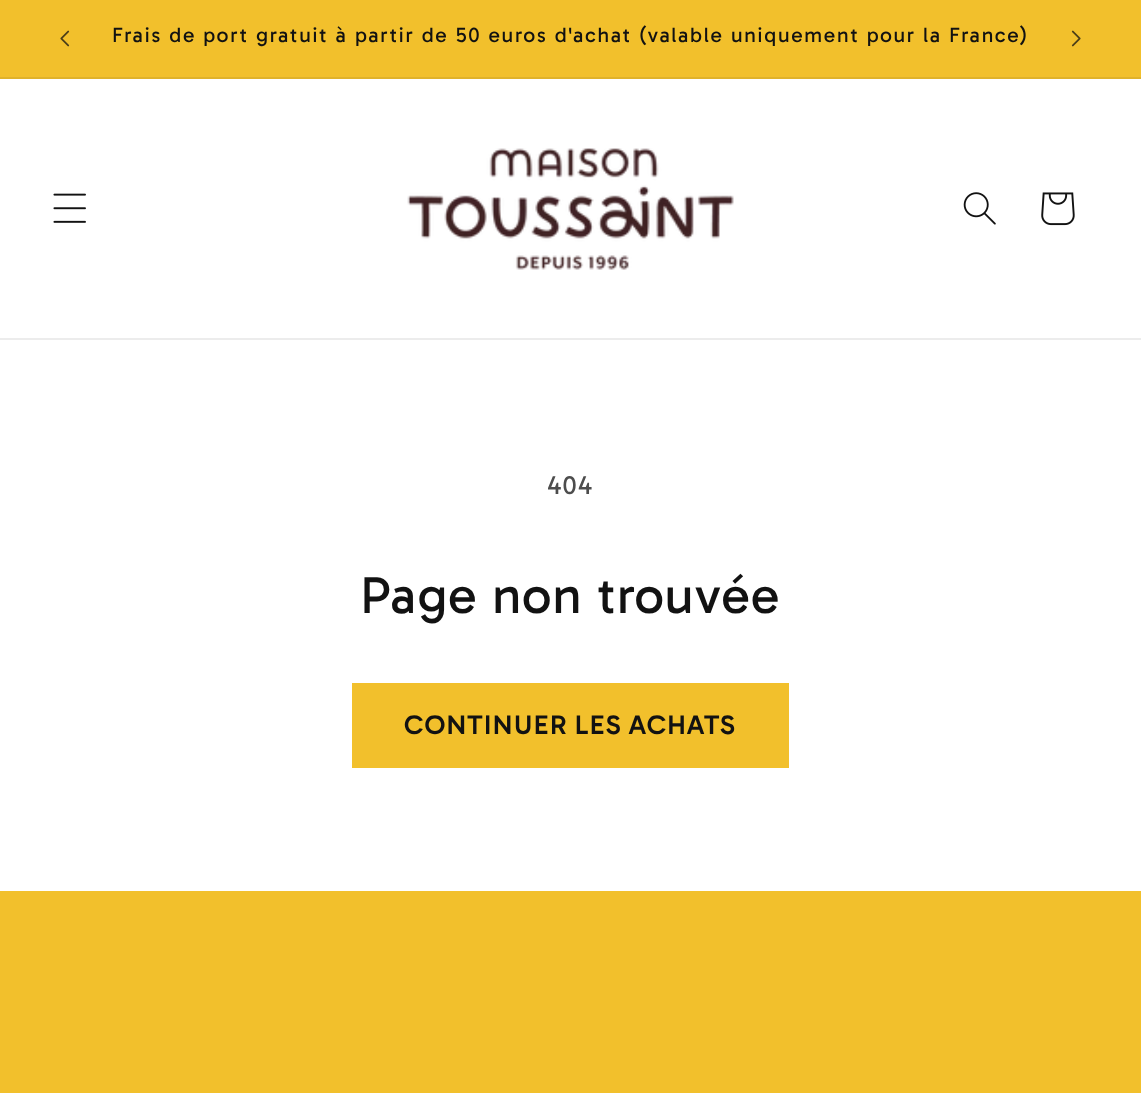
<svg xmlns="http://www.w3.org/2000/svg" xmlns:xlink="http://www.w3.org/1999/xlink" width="1141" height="1093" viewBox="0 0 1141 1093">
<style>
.cls-1{font:21px Gabarito;letter-spacing:1.75px;fill:#121212}
.cls-2{font:26.25px Gabarito;letter-spacing:1px;fill:#4d4d4d}
.cls-3{font:52.5px Gabarito;letter-spacing:1px;fill:#121212}
.cls-4{font:bold 26.25px Gabarito;letter-spacing:1.75px;fill:#121212}
</style>
<rect width="100%" height="100%" fill="#ffffff"/>
<rect fill="#f2c02c" x="0" y="0" width="1141" height="77"/>
<rect fill="#e0b22a" x="0" y="77" width="1141" height="2"/>
<image xlink:href="image0.png" x="60" y="30" width="10" height="17"/>
<image xlink:href="image1.png" x="1071" y="30" width="10" height="17"/>
<rect fill="#ececec" x="0" y="338" width="1141" height="2"/>
<image xlink:href="image2.png" x="53" y="193" width="33" height="30"/>
<image xlink:href="image3.png" x="407" y="148" width="327" height="122"/>
<image xlink:href="image4.png" x="963" y="192" width="33" height="33"/>
<image xlink:href="image5.png" x="1041" y="192" width="34" height="34"/>
<rect fill="#f2c02c" x="352" y="683" width="437" height="85"/>
<rect fill="#f2c02c" x="0" y="891" width="1141" height="202"/>
<text class="cls-1" x="112" y="42">Frais de port gratuit à partir de 50 euros d'achat (valable uniquement pour la France)</text>
<text class="cls-2" x="547" y="494">404</text>
<text class="cls-3" x="360" y="613">Page non trouvée</text>
<text class="cls-4" x="404" y="734" word-spacing="-2">CONTINUER LES ACHATS</text>
</svg>
